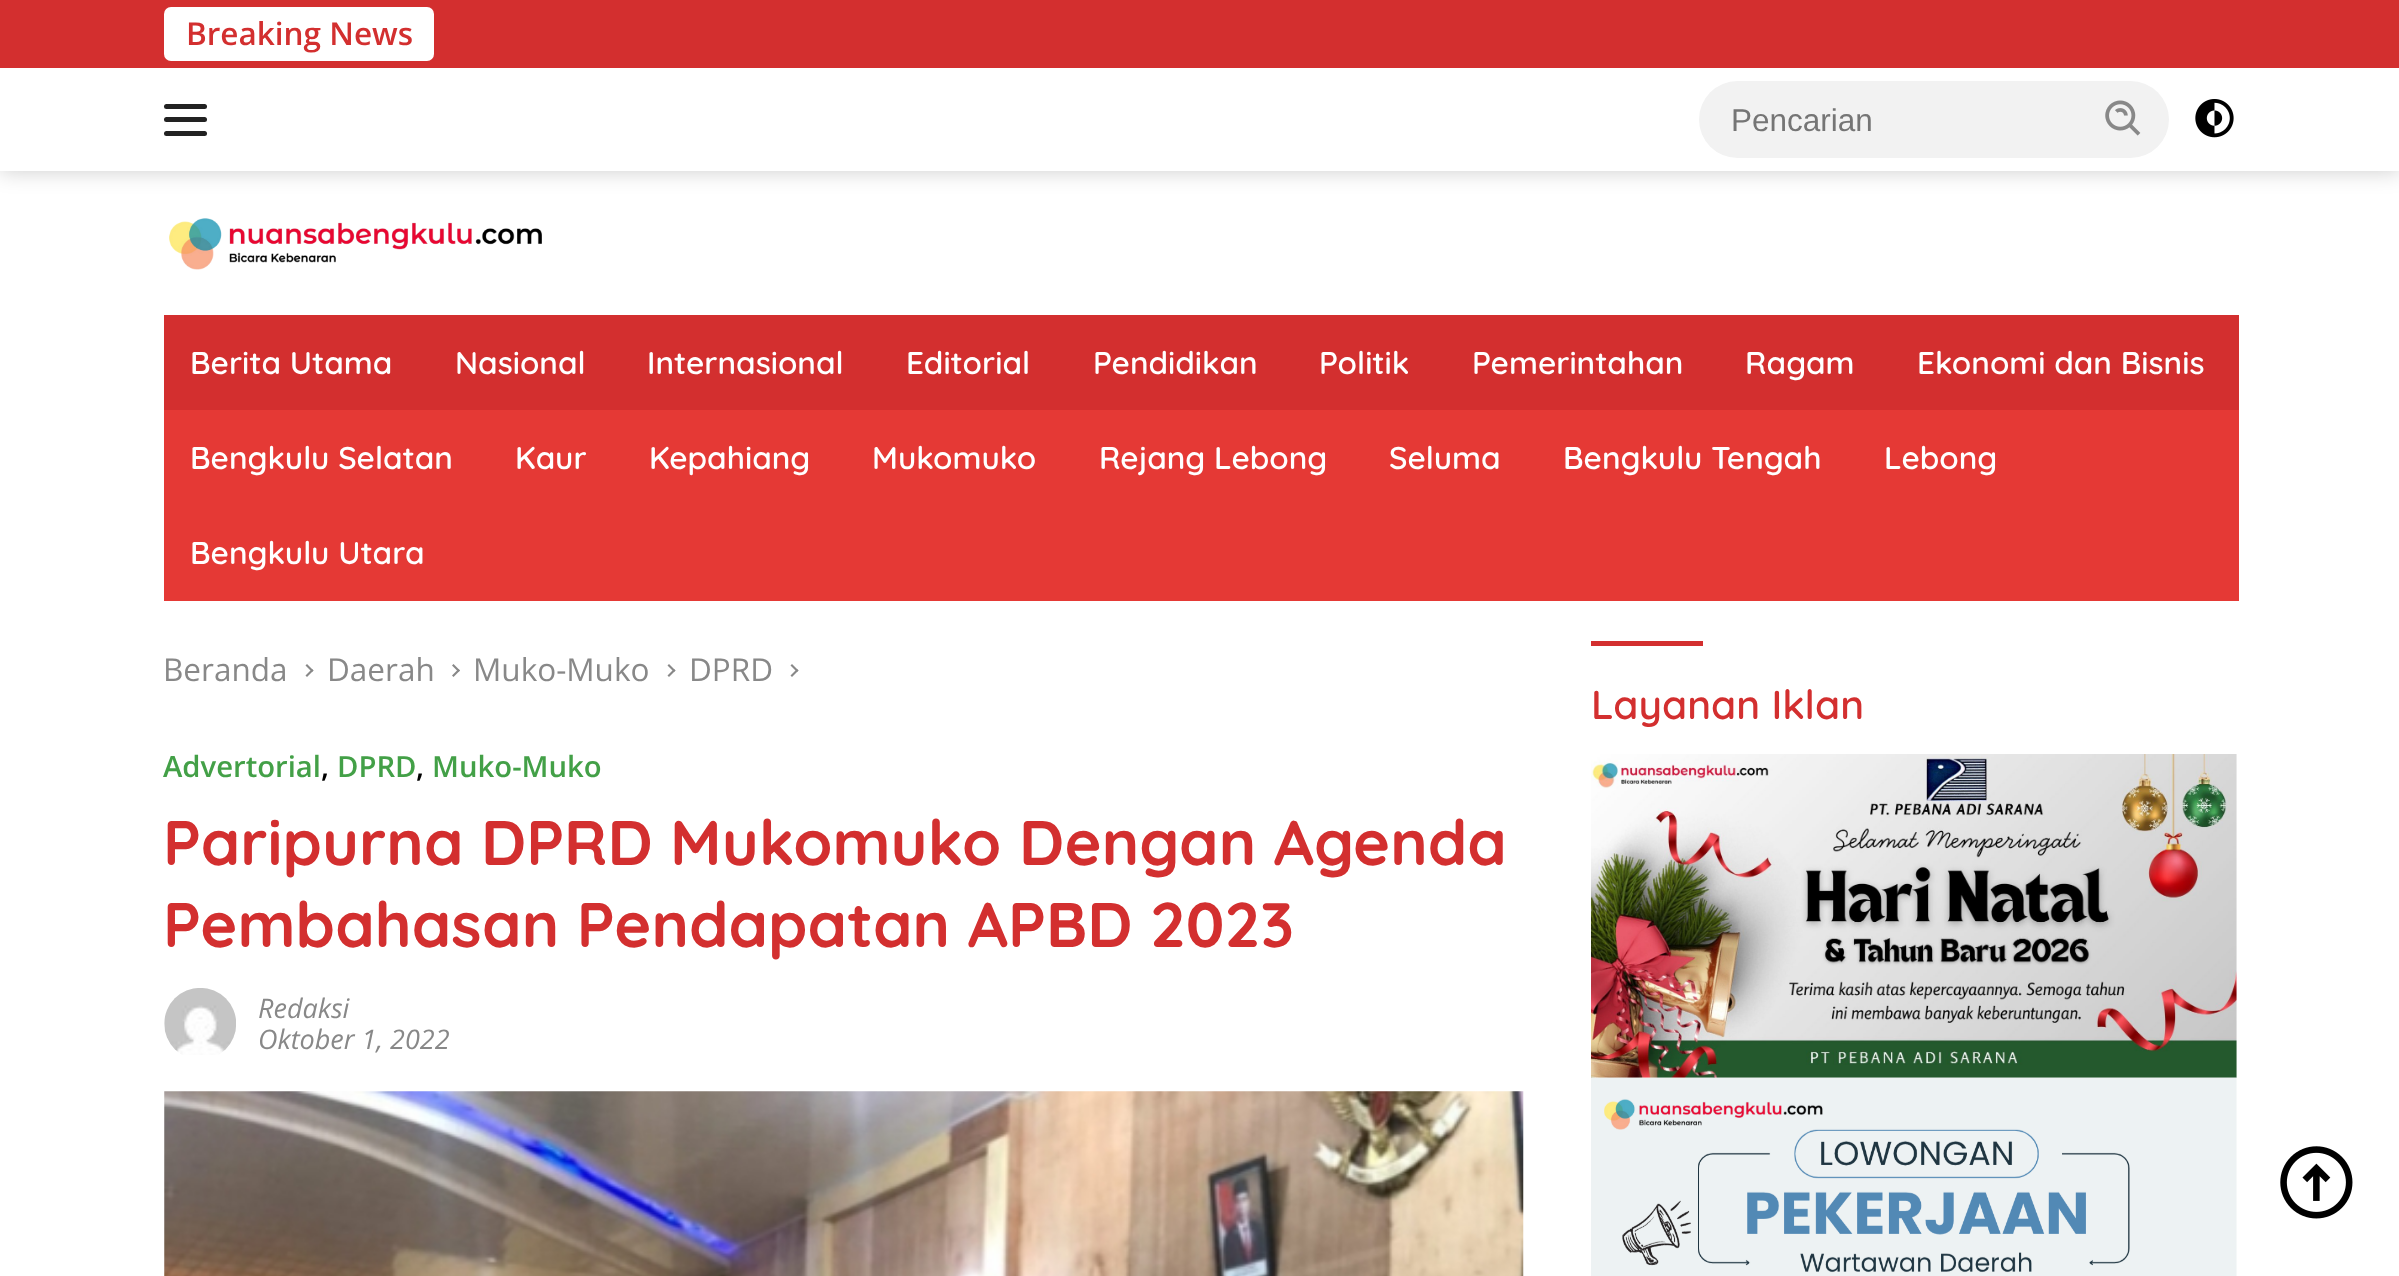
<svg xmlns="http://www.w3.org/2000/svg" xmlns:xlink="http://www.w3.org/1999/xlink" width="2399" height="1276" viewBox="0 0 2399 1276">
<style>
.cls-1{font:600 31.5px Open Sans;fill:#d32f2f}
.cls-2{font:31.5px Liberation Sans;fill:#757575}
.cls-3{font:600 31.5px Quicksand;fill:#ffffff}
.cls-4{font:31.5px Open Sans;fill:#888888}
.cls-5{font:600 29.25px Open Sans;fill:#43a047}
.cls-6{font:600 29.25px Open Sans;fill:#000000}
.cls-7{font:bold 63px Quicksand;fill:#d32f2f}
.cls-8{font:italic 27px Open Sans;fill:#888888}
.cls-9{font:600 40.5px Quicksand;fill:#d32f2f}
</style>
<rect width="100%" height="100%" fill="#ffffff"/>
<rect fill="#000000" fill-opacity="0.2" filter="blur(11px)" x="0" y="0" width="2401" height="171"/>
<rect fill="#ffffff" x="0" y="68" width="2399" height="103"/>
<rect fill="#d32f2f" x="0" y="0" width="2399" height="68"/>
<rect fill="#ffffff" x="164" y="7" width="270" height="54" rx="7"/>
<rect fill="#222222" x="164" y="104" width="43" height="5" rx="2.5"/>
<rect fill="#222222" x="164" y="117" width="43" height="5" rx="2.5"/>
<rect fill="#222222" x="164" y="131" width="43" height="5" rx="2.5"/>
<rect fill="#f2f2f2" x="1699" y="81" width="470" height="77" rx="38.5"/>
<image xlink:href="image0.png" x="2105" y="100" width="36" height="36"/>
<image xlink:href="image1.png" x="2195" y="99" width="39" height="39"/>
<image xlink:href="image2.png" x="169" y="218" width="373" height="52"/>
<rect fill="#e53935" x="164" y="410" width="2075" height="191"/>
<rect fill="#d32f2f" x="164" y="315" width="2075" height="95"/>
<path fill="#888888" d="M305.5 665.5L307 664L313.5 670.5L312 672Z"/>
<path fill="#888888" d="M305.5 675.5L312 669L313.5 670.5L307 677Z"/>
<path fill="#888888" d="M452 665.5L453.5 664L460 670.5L458.5 672Z"/>
<path fill="#888888" d="M452 675.5L458.5 669L460 670.5L453.5 677Z"/>
<path fill="#888888" d="M667.5 665.5L669 664L675.5 670.5L674 672Z"/>
<path fill="#888888" d="M667.5 675.5L674 669L675.5 670.5L669 677Z"/>
<path fill="#888888" d="M790.5 665.5L792 664L798.5 670.5L797 672Z"/>
<path fill="#888888" d="M790.5 675.5L797 669L798.5 670.5L792 677Z"/>
<image xlink:href="image3.png" x="164" y="988" width="72" height="67"/>
<image xlink:href="image4.png" x="164" y="1091" width="1360" height="185"/>
<rect fill="#d32f2f" x="1591" y="641" width="112" height="5"/>
<image xlink:href="image5.png" x="1591" y="754" width="646" height="324"/>
<image xlink:href="image6.png" x="1591" y="1077" width="646" height="199"/>
<image xlink:href="image7.png" x="2280" y="1146" width="73" height="73"/>
<text class="cls-1" x="186" y="45">Breaking News</text>
<text class="cls-2" x="1731" y="131">Pencarian</text>
<text class="cls-3" x="190" y="374">Berita Utama</text>
<text class="cls-3" x="455" y="374">Nasional</text>
<text class="cls-3" x="647" y="374">Internasional</text>
<text class="cls-3" x="906" y="374">Editorial</text>
<text class="cls-3" x="1093" y="374">Pendidikan</text>
<text class="cls-3" x="1319" y="374">Politik</text>
<text class="cls-3" x="1472" y="374">Pemerintahan</text>
<text class="cls-3" x="1745" y="374">Ragam</text>
<text class="cls-3" x="1917" y="374">Ekonomi dan Bisnis</text>
<text class="cls-3" x="190" y="469">Bengkulu Selatan</text>
<text class="cls-3" x="515" y="469">Kaur</text>
<text class="cls-3" x="649" y="469">Kepahiang</text>
<text class="cls-3" x="872" y="469">Mukomuko</text>
<text class="cls-3" x="1099" y="469">Rejang Lebong</text>
<text class="cls-3" x="1389" y="469">Seluma</text>
<text class="cls-3" x="1563" y="469">Bengkulu Tengah</text>
<text class="cls-3" x="1884" y="469">Lebong</text>
<text class="cls-3" x="190" y="564">Bengkulu Utara</text>
<text class="cls-4" x="163" y="681">Beranda</text>
<text class="cls-4" x="327" y="681">Daerah</text>
<text class="cls-4" x="473" y="681">Muko-Muko</text>
<text class="cls-4" x="689" y="681">DPRD</text>
<text class="cls-5" x="163" y="777">Advertorial</text>
<text class="cls-6" x="321" y="777">,</text>
<text class="cls-5" x="337" y="777">DPRD</text>
<text class="cls-6" x="416" y="777">,</text>
<text class="cls-5" x="432" y="777">Muko-Muko</text>
<text class="cls-7"><tspan x="163" y="865">Paripurna DPRD Mukomuko Dengan Agenda</tspan><tspan x="163" y="947">Pembahasan Pendapatan APBD 2023</tspan></text>
<text class="cls-8"><tspan x="258" y="1018">Redaksi</tspan><tspan x="258" y="1049">Oktober 1, 2022</tspan></text>
<text class="cls-9" x="1591" y="719">Layanan Iklan</text>
</svg>
